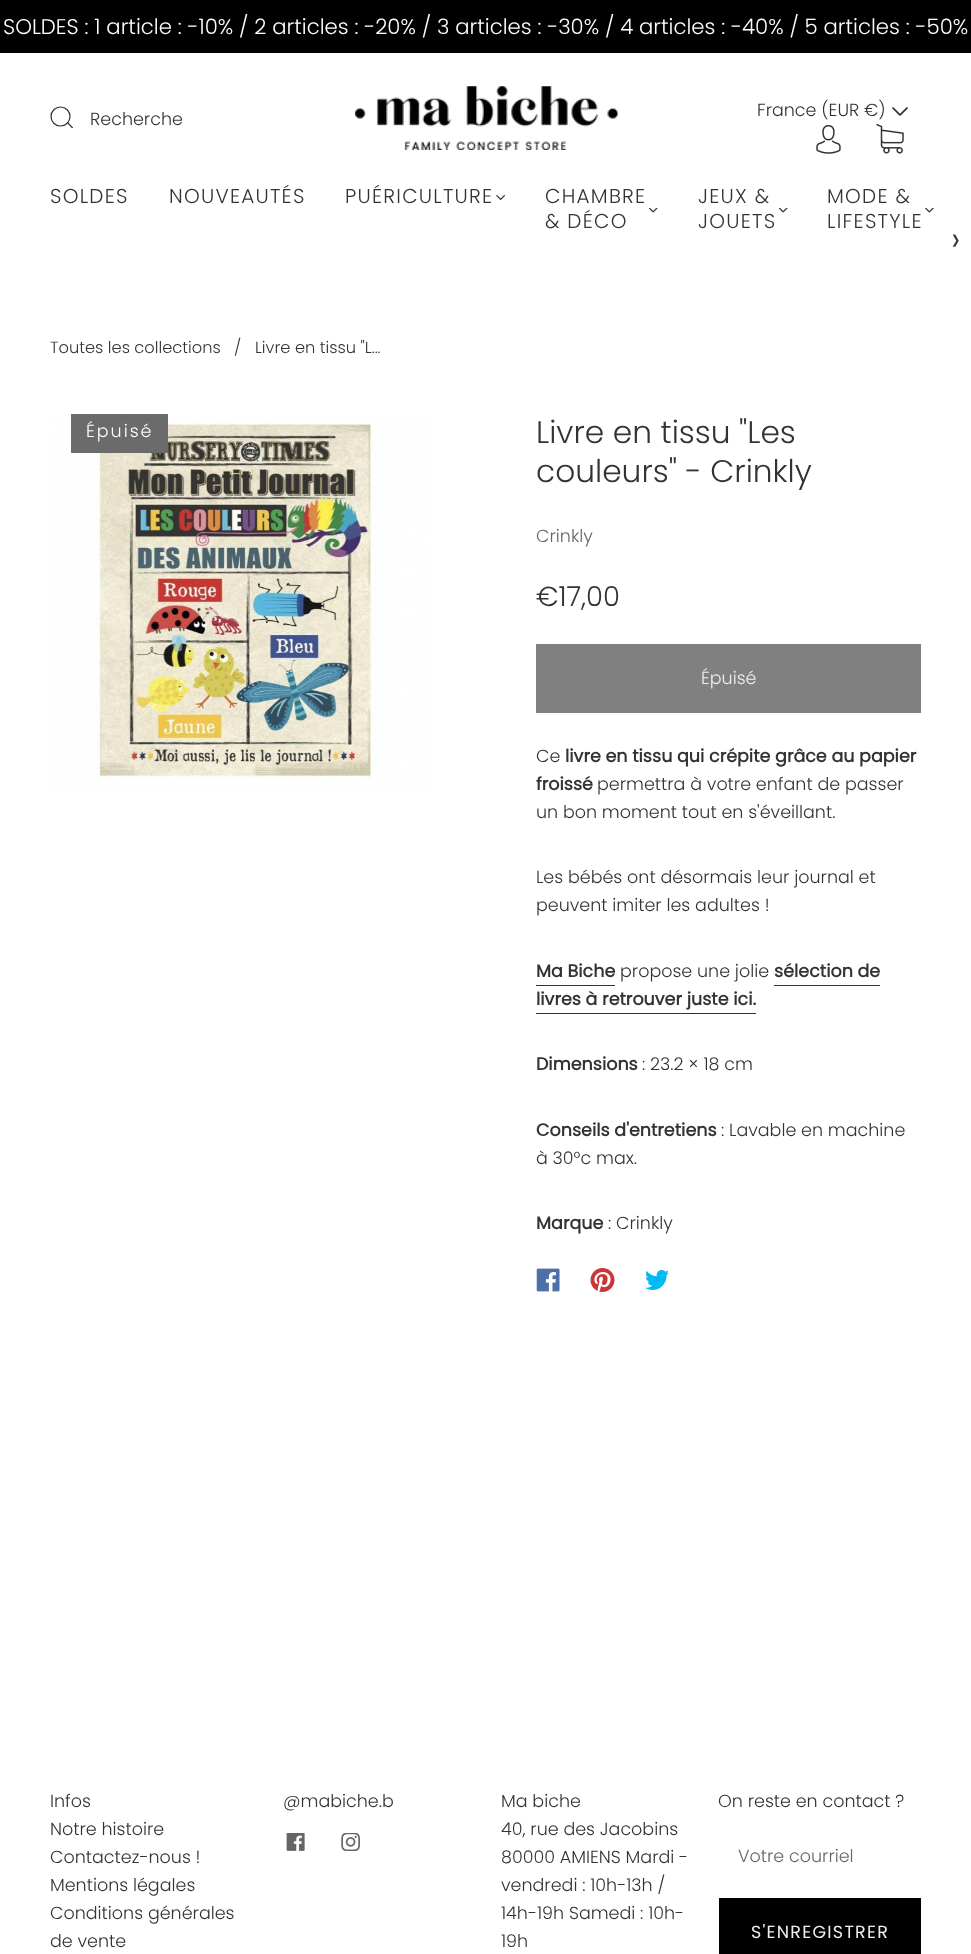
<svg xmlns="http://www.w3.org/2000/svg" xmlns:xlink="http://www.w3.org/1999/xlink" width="971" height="1954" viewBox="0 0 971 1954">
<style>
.cls-1{font:300 21.25px Poppins;fill:#ffffff}
.cls-2{font:300 17.5px Poppins;fill:#333333}
.cls-3{font:300 20px Poppins;letter-spacing:1.25px;fill:#333333}
.cls-4{font:300 35px Poppins;fill:#333333}
.cls-5{font:300 16.25px Poppins;fill:#333333}
.cls-6{font:300 17.5px Poppins;letter-spacing:2px;fill:#ffffff}
.cls-7{font:300 31.25px Poppins;fill:#333333}
.cls-8{font:300 17.5px Poppins;fill:#666666}
.cls-9{font:300 27.5px Poppins;fill:#333333}
.cls-10{font:300 17.5px Poppins;fill:#eeeeee}
.cls-11{font:bold 17.5px Poppins;fill:#333333}
.cls-12{font:17.5px Poppins;letter-spacing:1.25px;fill:#eeeeee}
</style>
<defs>
<clipPath id="clip1"><rect x="50" y="106" width="23" height="22"/></clipPath>
</defs>
<rect width="100%" height="100%" fill="#ffffff"/>
<rect fill="#000000" x="0" y="0" width="971" height="53"/>
<circle fill="none" stroke="#333333" stroke-width="1.2" cx="60.5" cy="116.5" r="9.5"/>
<g clip-path="url(#clip1)">
<path fill="none" stroke="#333333" stroke-width="1.2" d="M67.5 122.5L74 129.5"/>
</g>
<image xlink:href="image0.png" x="355" y="86" width="263" height="64"/>
<image xlink:href="image1.png" x="892" y="107" width="16" height="9"/>
<image xlink:href="image2.png" x="816" y="125" width="25" height="29"/>
<image xlink:href="image3.png" x="876" y="124" width="28" height="30"/>
<image xlink:href="image4.png" x="496" y="195" width="9" height="5"/>
<image xlink:href="image5.png" x="649" y="208" width="9" height="5"/>
<image xlink:href="image5.png" x="779" y="208" width="9" height="5"/>
<image xlink:href="image6.png" x="925" y="208" width="9" height="5"/>
<image xlink:href="image7.png" x="53" y="414" width="381" height="380"/>
<rect fill="#6b6b6b" x="71" y="414" width="97" height="39"/>
<rect fill="#808080" x="536" y="644" width="385" height="69"/>
<rect fill="#333333" x="536" y="985" width="79" height="1"/>
<rect fill="#333333" x="774" y="985" width="106" height="1"/>
<rect fill="#333333" x="536" y="1013" width="220" height="1"/>
<image xlink:href="image8.png" x="536" y="1268" width="24" height="24"/>
<image xlink:href="image9.png" x="590" y="1268" width="25" height="24"/>
<image xlink:href="image10.png" x="645" y="1270" width="24" height="20"/>
<image xlink:href="image11.png" x="286" y="1833" width="19" height="18"/>
<image xlink:href="image12.png" x="341" y="1833" width="19" height="18"/>
<rect fill="#000000" x="719" y="1898" width="202" height="56"/>
<text class="cls-1" x="3" y="34">SOLDES : 1 article : -10% / 2 articles : -20% / 3 articles : -30% / 4 articles : -40% / 5 articles : -50%</text>
<text class="cls-2" x="90" y="125">Recherche</text>
<text class="cls-2" x="757" y="116">France (EUR €)</text>
<text class="cls-3" x="50" y="203">SOLDES</text>
<text class="cls-3" x="169" y="203">NOUVEAUTÉS</text>
<text class="cls-3" x="345" y="203">PUÉRICULTURE</text>
<text class="cls-3"><tspan x="545" y="203">CHAMBRE</tspan><tspan x="545" y="228">&amp; DÉCO</tspan></text>
<text class="cls-3"><tspan x="698" y="203">JEUX &amp;</tspan><tspan x="698" y="228">JOUETS</tspan></text>
<text class="cls-3"><tspan x="827" y="203">MODE &amp;</tspan><tspan x="827" y="228">LIFESTYLE</tspan></text>
<text class="cls-4" x="951" y="251">›</text>
<text class="cls-5" x="50" y="353">Toutes les collections</text>
<text class="cls-5" x="234" y="353">/</text>
<text class="cls-5" x="255" y="353">Livre en tissu "L...</text>
<text class="cls-6" x="86" y="437">Épuisé</text>
<text class="cls-7"><tspan x="536" y="443">Livre en tissu "Les</tspan><tspan x="536" y="482">couleurs" - Crinkly</tspan></text>
<text class="cls-8" x="536" y="542">Crinkly</text>
<text class="cls-9" x="536" y="606">€17,00</text>
<text class="cls-10" x="701" y="684">Épuisé</text>
<text class="cls-2" x="536" y="762">Ce</text>
<text class="cls-11" x="565" y="762">livre en tissu qui crépite grâce au papier</text>
<text class="cls-11" x="536" y="790">froissé</text>
<text class="cls-2" x="597" y="790">permettra à votre enfant de passer</text>
<text class="cls-2" x="536" y="818">un bon moment tout en s'éveillant.</text>
<text class="cls-2"><tspan x="536" y="883">Les bébés ont désormais leur journal et</tspan><tspan x="536" y="911">peuvent imiter les adultes !</tspan></text>
<text class="cls-11" x="536" y="977">Ma Biche</text>
<text class="cls-2" x="620" y="977">propose une jolie</text>
<text class="cls-11" x="774" y="977">sélection de</text>
<text class="cls-11" x="536" y="1005">livres à retrouver juste ici.</text>
<text class="cls-11" x="536" y="1070">Dimensions</text>
<text class="cls-2" x="642" y="1070">: 23.2 × 18 cm</text>
<text class="cls-11" x="536" y="1136">Conseils d'entretiens</text>
<text class="cls-2" x="721" y="1136">: Lavable en machine</text>
<text class="cls-2" x="536" y="1164">à 30°c max.</text>
<text class="cls-11" x="536" y="1229">Marque</text>
<text class="cls-2" x="608" y="1229">: Crinkly</text>
<text class="cls-2"><tspan x="50" y="1807">Infos</tspan><tspan x="50" y="1835">Notre histoire</tspan><tspan x="50" y="1863">Contactez-nous !</tspan><tspan x="50" y="1891">Mentions légales</tspan><tspan x="50" y="1919">Conditions générales</tspan><tspan x="50" y="1947">de vente</tspan></text>
<text class="cls-2" x="283" y="1807">@mabiche.b</text>
<text class="cls-2"><tspan x="501" y="1807">Ma biche</tspan><tspan x="501" y="1835">40, rue des Jacobins</tspan><tspan x="501" y="1863">80000 AMIENS Mardi -</tspan><tspan x="501" y="1891">vendredi : 10h-13h /</tspan><tspan x="501" y="1919">14h-19h Samedi : 10h-</tspan><tspan x="501" y="1947">19h</tspan></text>
<text class="cls-2" x="718" y="1807">On reste en contact ?</text>
<text class="cls-8" x="738" y="1862">Votre courriel</text>
<text class="cls-12" x="751" y="1938">S'ENREGISTRER</text>
</svg>
